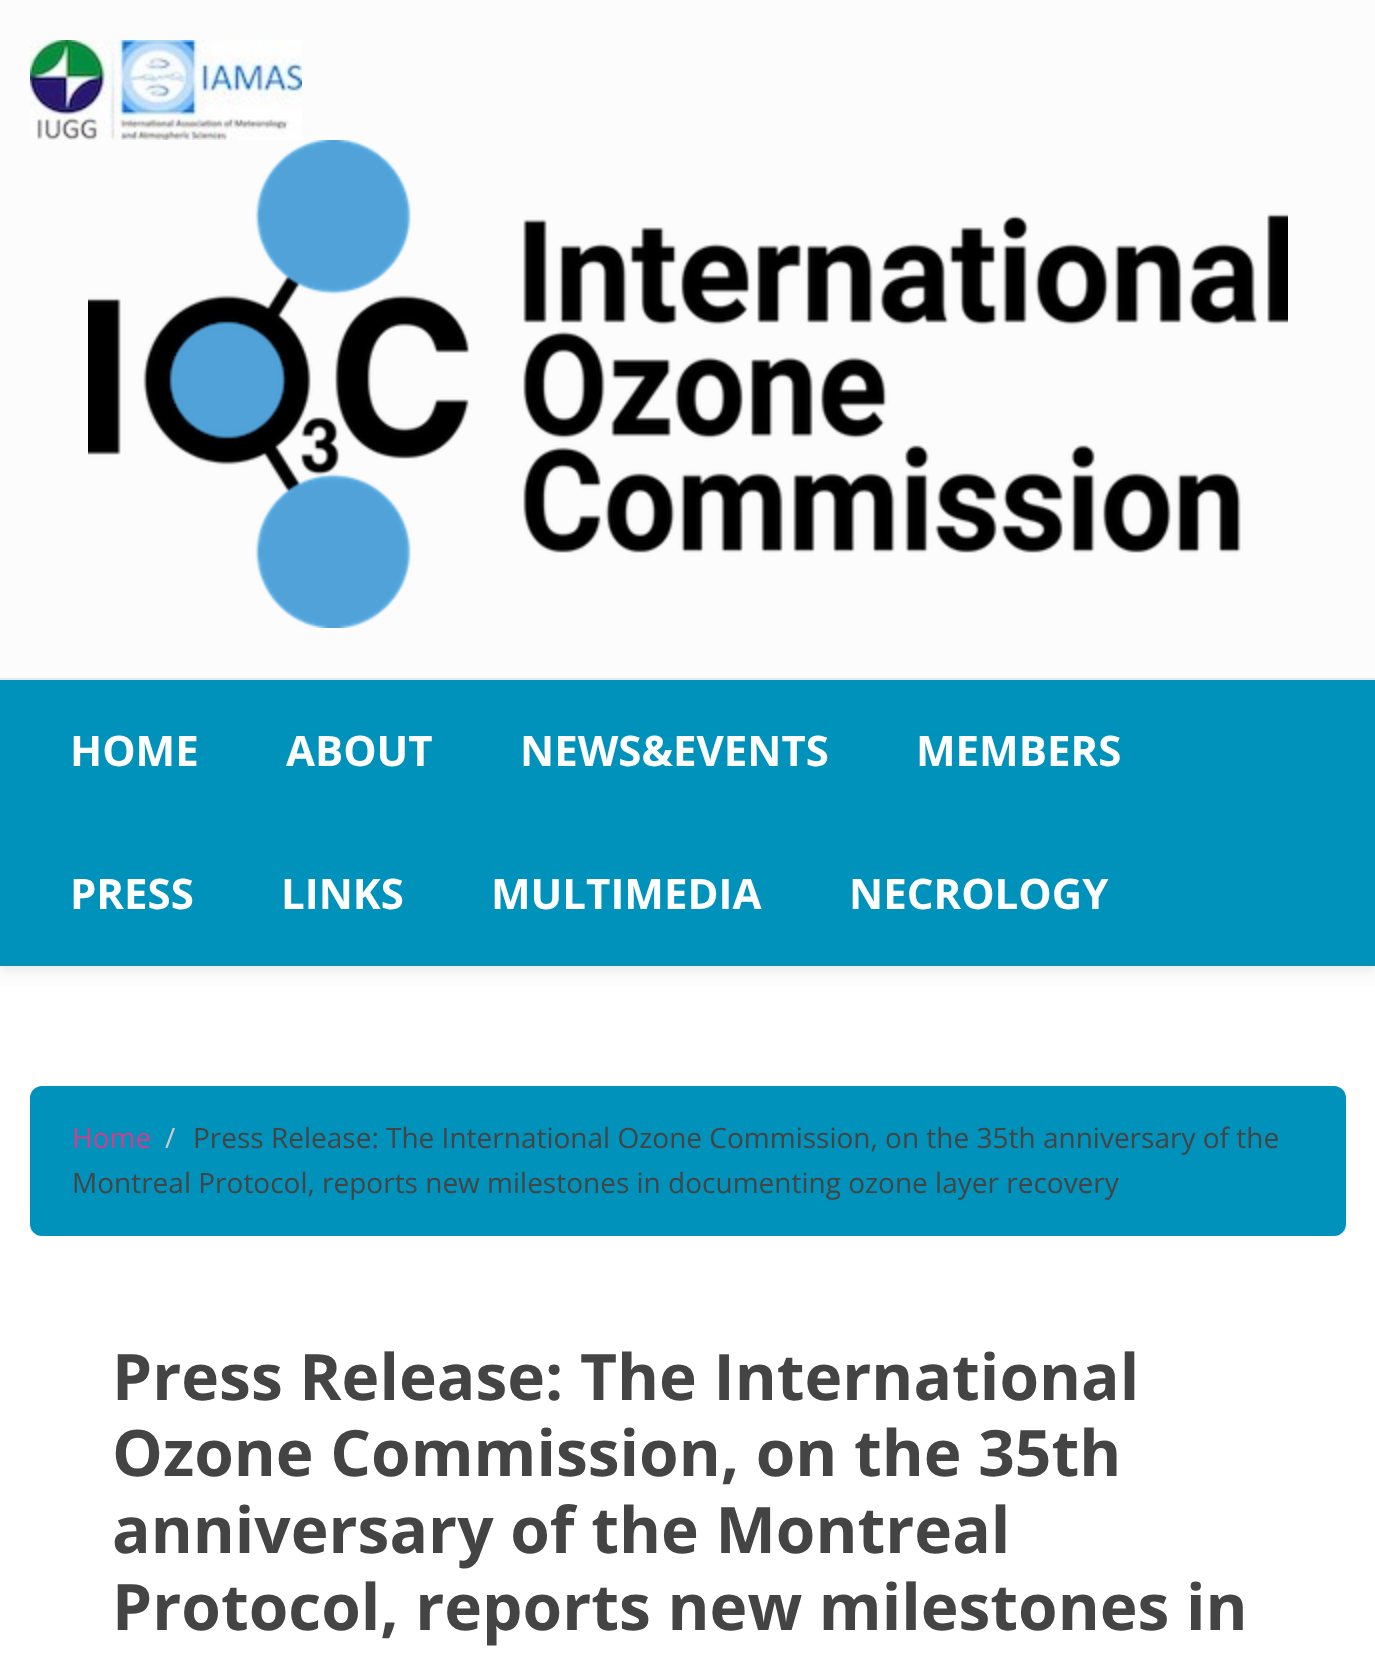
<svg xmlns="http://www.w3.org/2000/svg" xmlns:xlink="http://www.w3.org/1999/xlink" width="1375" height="1667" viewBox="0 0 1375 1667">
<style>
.cls-1{font:bold 42px Open Sans;fill:#ffffff}
.cls-2{font:28px Open Sans;fill:#d33c8c}
.cls-3{font:28px Open Sans;fill:#cccccc}
.cls-4{font:28px Open Sans;fill:#444444}
.cls-5{font:bold 64px Open Sans;fill:#444444}
</style>
<rect width="100%" height="100%" fill="#ffffff"/>
<rect fill="#fcfcfc" x="0" y="0" width="1375" height="678"/>
<rect fill="#eaeaea" x="0" y="678" width="1375" height="2"/>
<image xlink:href="image0.png" x="30" y="40" width="272" height="100"/>
<image xlink:href="image1.png" x="88" y="140" width="1200" height="488"/>
<rect fill="#fcfcfc" x="0" y="966" width="1375" height="20"/>
<rect fill="#000000" fill-opacity="0.07" filter="blur(4px)" x="0" y="684" width="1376" height="286"/>
<rect fill="#0092bb" x="0" y="680" width="1375" height="286"/>
<rect fill="#0092bb" stroke="#0092bb" stroke-width="2" x="31" y="1087" width="1314" height="148" rx="11"/>
<text class="cls-1" x="70" y="766">HOME</text>
<text class="cls-1" x="286" y="766">ABOUT</text>
<text class="cls-1" x="520" y="766">NEWS&amp;EVENTS</text>
<text class="cls-1" x="916" y="766">MEMBERS</text>
<text class="cls-1" x="70" y="909">PRESS</text>
<text class="cls-1" x="281" y="909">LINKS</text>
<text class="cls-1" x="491" y="909">MULTIMEDIA</text>
<text class="cls-1" x="849" y="909">NECROLOGY</text>
<text class="cls-2" x="72" y="1148">Home</text>
<text class="cls-3" x="165" y="1148">/</text>
<text class="cls-4" x="193" y="1148">Press Release: The International Ozone Commission, on the 35th anniversary of the</text>
<text class="cls-4" x="72" y="1193">Montreal Protocol, reports new milestones in documenting ozone layer recovery</text>
<text class="cls-5"><tspan x="112" y="1400">Press Release: The International</tspan><tspan x="112" y="1476">Ozone Commission, on the 35th</tspan><tspan x="112" y="1553">anniversary of the Montreal</tspan><tspan x="112" y="1630">Protocol, reports new milestones in</tspan></text>
</svg>
